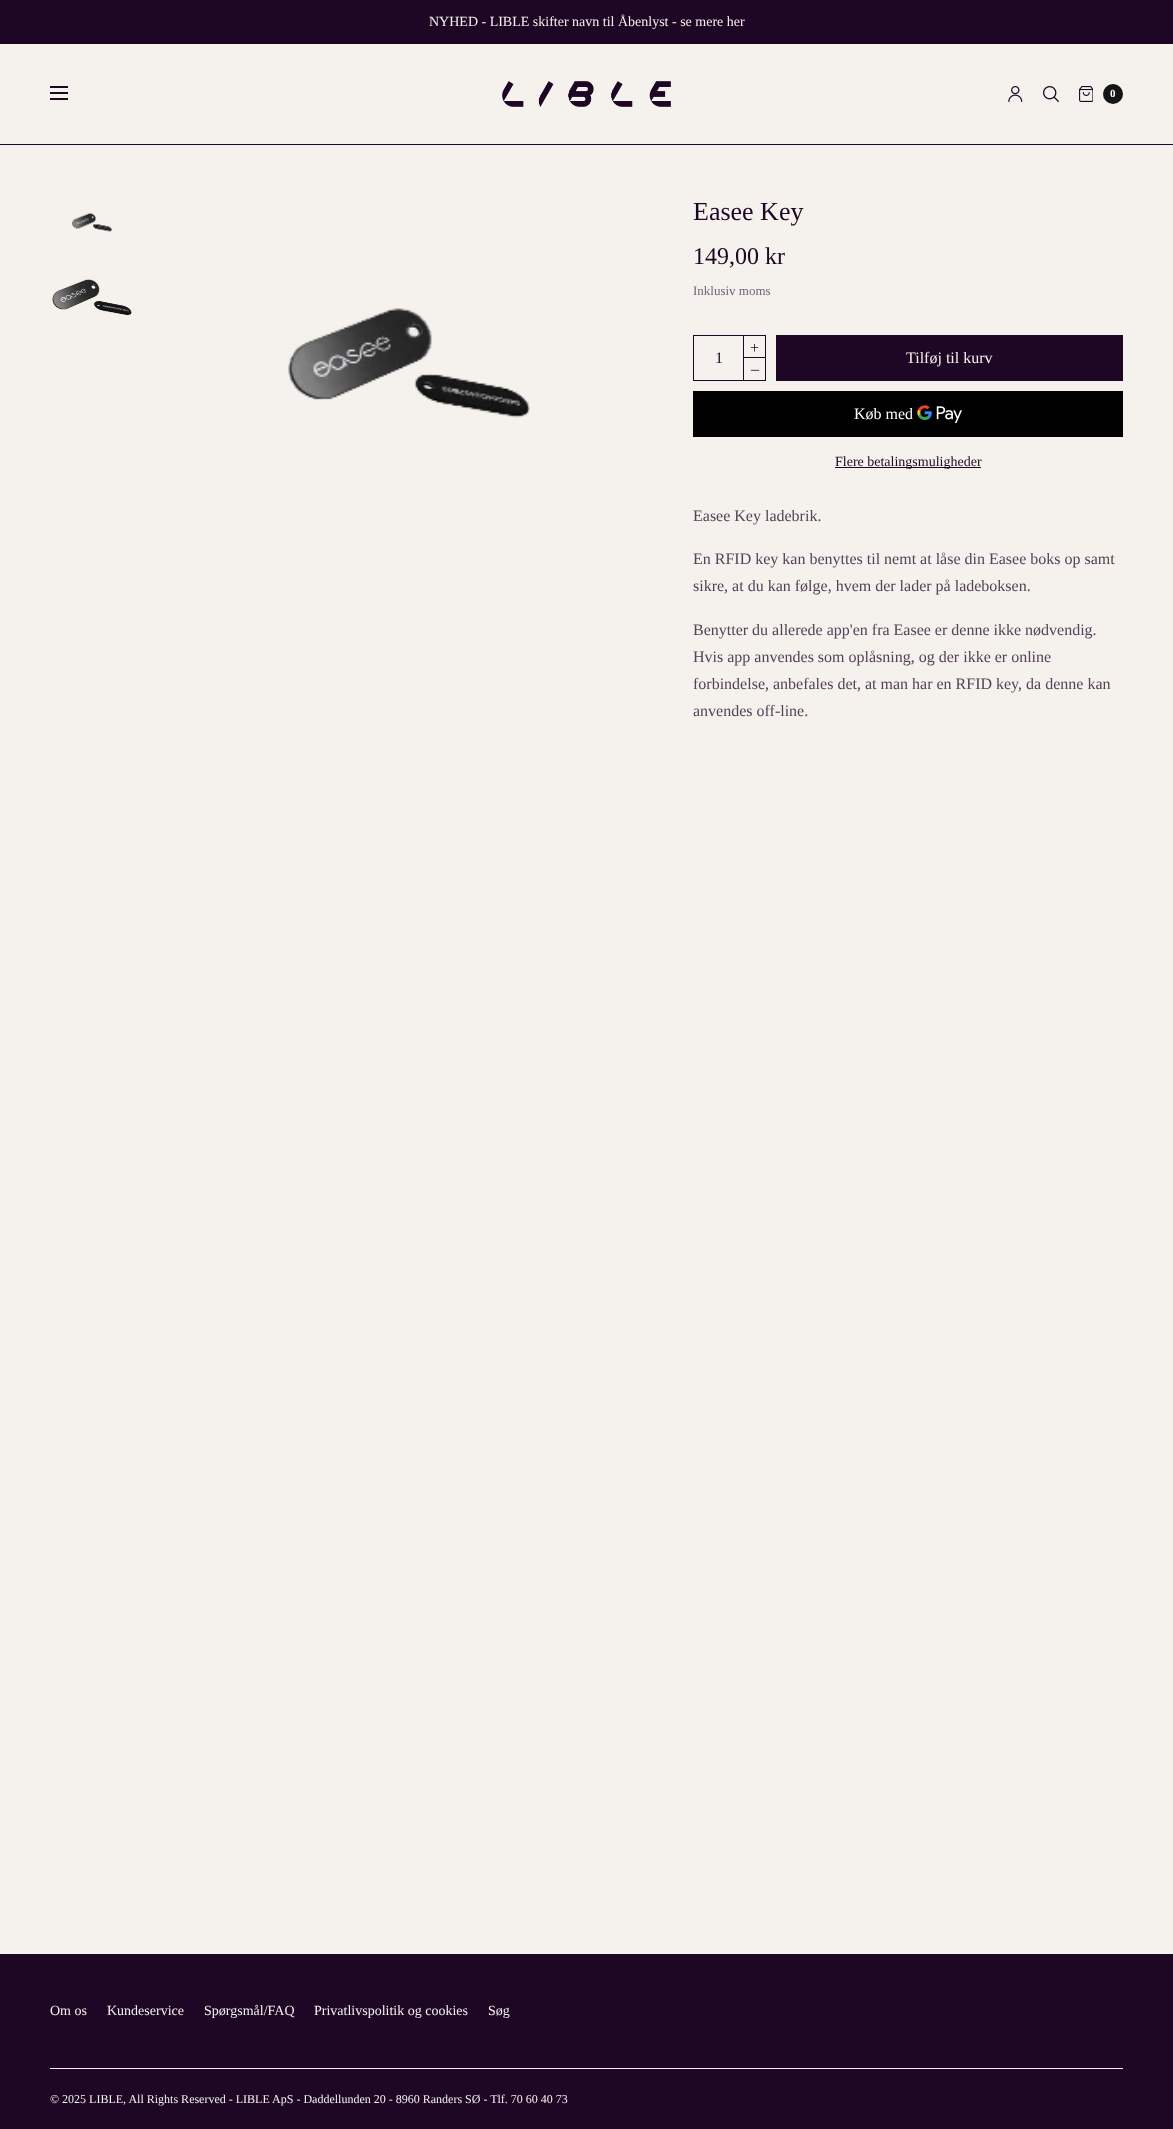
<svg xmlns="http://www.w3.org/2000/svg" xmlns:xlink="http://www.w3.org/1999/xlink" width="1173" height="2129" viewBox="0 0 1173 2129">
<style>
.cls-1{font:14px Liberation Serif;fill:#f5f1ed}
.cls-2{font:bold 11px Liberation Serif;fill:#ffffff}
.cls-3{font:26px Liberation Serif;fill:#1e0724}
.cls-4{font:24px Liberation Serif;fill:#1e0724}
.cls-5{font:13px Liberation Serif;fill:#746574}
.cls-6{font:16px Liberation Serif;fill:#1e0724}
.cls-7{font:16px Liberation Serif;fill:#f5f1ed}
.cls-8{font:16px Liberation Serif;fill:#ffffff}
.cls-9{font:14px Liberation Serif;fill:#1e0724}
.cls-10{font:16px Liberation Serif;fill:#544256}
.cls-11{font:12px Liberation Serif;fill:#f5f1ed}
</style>
<rect width="100%" height="100%" fill="#f5f1ed"/>
<rect fill="#1e0724" x="0" y="0" width="1173" height="44"/>
<rect fill="#1e0724" x="0" y="144" width="1173" height="1"/>
<rect fill="#1e0724" x="50" y="86" width="18" height="2"/>
<rect fill="#1e0724" x="50" y="92" width="18" height="2"/>
<rect fill="#1e0724" x="50" y="98" width="18" height="2"/>
<image xlink:href="image0.png" x="502" y="81" width="169" height="26"/>
<image xlink:href="image1.png" x="1008" y="86" width="15" height="16"/>
<image xlink:href="image2.png" x="1043" y="86" width="16" height="16"/>
<image xlink:href="image3.png" x="1079" y="86" width="14" height="16"/>
<circle fill="#151515" cx="1113" cy="94" r="10"/>
<image xlink:href="image4.png" x="72" y="212" width="40" height="20"/>
<image xlink:href="image5.png" x="52" y="279" width="80" height="37"/>
<image xlink:href="image6.png" x="288" y="308" width="242" height="110"/>
<rect fill="none" stroke="#1e0724" x="693.5" y="335.5" width="50" height="45"/>
<rect fill="none" stroke="#1e0724" x="743.5" y="335.5" width="22" height="22"/>
<rect fill="none" stroke="#1e0724" x="743.5" y="357.5" width="22" height="23"/>
<rect fill="#1e0724" x="776" y="335" width="347" height="46"/>
<rect fill="#000000" x="693" y="391" width="430" height="46"/>
<image xlink:href="image7.png" x="917" y="405" width="45" height="18"/>
<rect fill="#1e0724" x="835" y="467" width="146" height="1"/>
<rect fill="#1e0724" x="0" y="1954" width="1173" height="175"/>
<rect fill="#f5f1ed" x="50" y="2068" width="1073" height="1"/>
<text class="cls-1" x="429" y="26">NYHED - LIBLE skifter navn til Åbenlyst - se mere her</text>
<text class="cls-2" x="1110" y="97">0</text>
<text class="cls-3" x="693" y="220">Easee Key</text>
<text class="cls-4" x="693" y="264">149,00 kr</text>
<text class="cls-5" x="693" y="295">Inklusiv moms</text>
<text class="cls-6" x="750" y="353">+</text>
<text class="cls-6" x="715" y="363">1</text>
<text class="cls-6" x="751" y="374">–</text>
<text class="cls-7" x="906" y="363">Tilføj til kurv</text>
<text class="cls-8" x="854" y="419">Køb med</text>
<text class="cls-9" x="835" y="466">Flere betalingsmuligheder</text>
<text class="cls-10" x="693" y="521">Easee Key ladebrik.</text>
<text class="cls-10"><tspan x="693" y="564">En RFID key kan benyttes til nemt at låse din Easee boks op samt</tspan><tspan x="693" y="591">sikre, at du kan følge, hvem der lader på ladeboksen.</tspan></text>
<text class="cls-10"><tspan x="693" y="635">Benytter du allerede app'en fra Easee er denne ikke nødvendig.</tspan><tspan x="693" y="662">Hvis app anvendes som oplåsning, og der ikke er online</tspan><tspan x="693" y="689">forbindelse, anbefales det, at man har en RFID key, da denne kan</tspan><tspan x="693" y="716">anvendes off-line.</tspan></text>
<text class="cls-1" x="50" y="2015">Om os</text>
<text class="cls-1" x="107" y="2015">Kundeservice</text>
<text class="cls-1" x="204" y="2015">Spørgsmål/FAQ</text>
<text class="cls-1" x="314" y="2015">Privatlivspolitik og cookies</text>
<text class="cls-1" x="488" y="2015">Søg</text>
<text class="cls-11" x="50" y="2103">© 2025 LIBLE, All Rights Reserved - LIBLE ApS - Daddellunden 20 - 8960 Randers SØ - Tlf. 70 60 40 73</text>
</svg>
